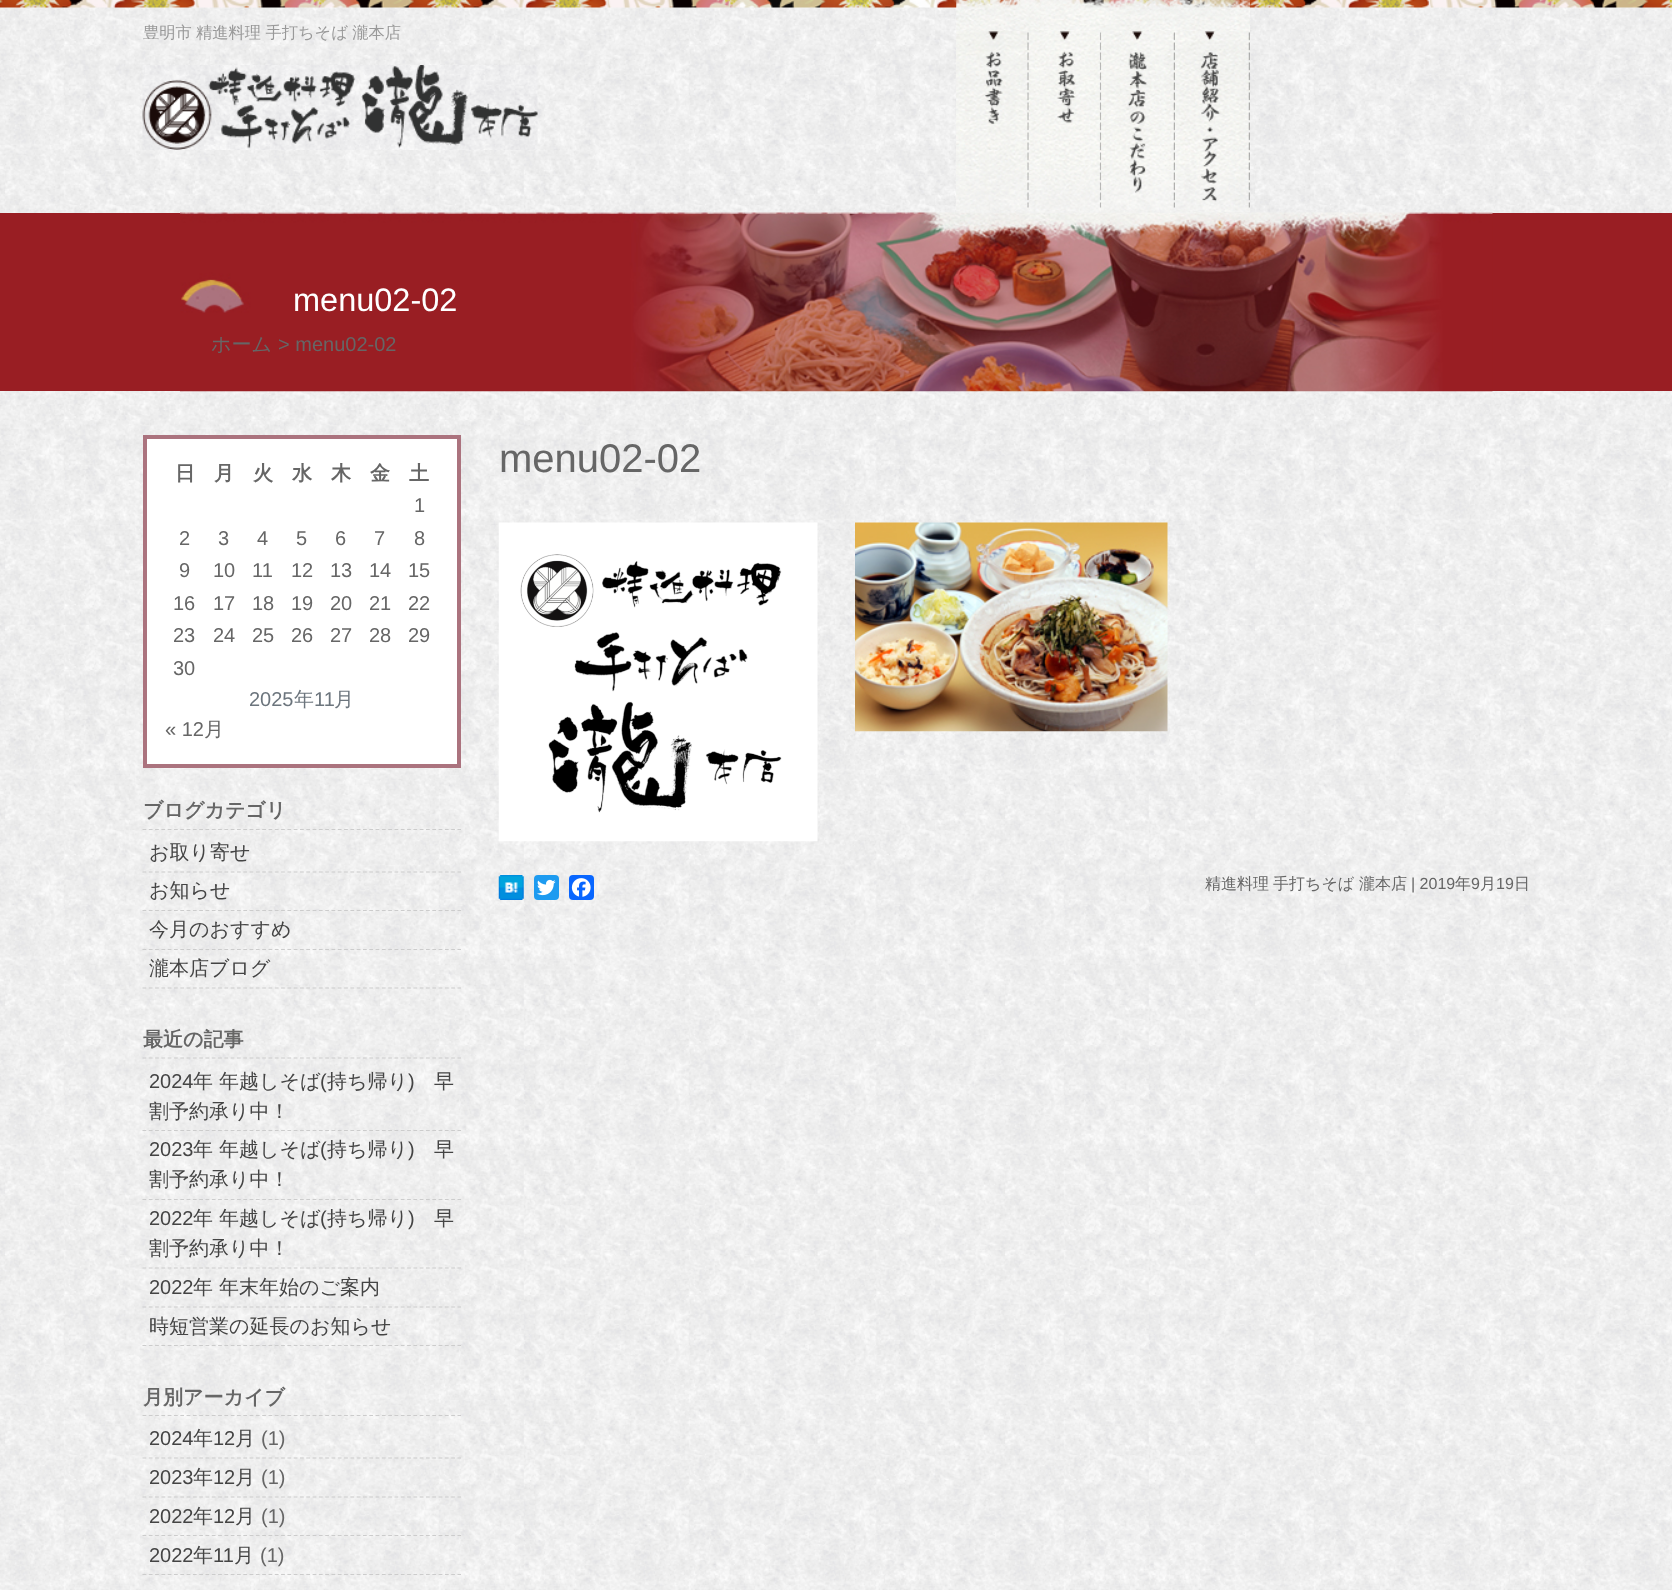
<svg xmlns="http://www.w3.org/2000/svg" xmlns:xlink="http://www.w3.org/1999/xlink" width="1672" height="1590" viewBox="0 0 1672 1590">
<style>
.cls-1{font:500 16.25px WenQuanYi Zen Hei;fill:#999999}
.cls-2{font:32.5px Liberation Sans;fill:#ffffff}
.cls-3{font:500 20px WenQuanYi Zen Hei;fill:#666666}
.cls-4{font:20px Liberation Sans;fill:#666666}
.cls-5{font:bold 20px WenQuanYi Zen Hei;fill:#666666}
.cls-6{font:20px Liberation Sans;fill:#6c757d}
.cls-7{font:500 20px WenQuanYi Zen Hei;fill:#6c757d}
.cls-8{font:500 20px WenQuanYi Zen Hei;fill:#444444}
.cls-9{font:20px Liberation Sans;fill:#444444}
.cls-10{font:40px Liberation Sans;fill:#666666}
.cls-11{font:500 16px WenQuanYi Zen Hei;fill:#666666}
.cls-12{font:16px Liberation Sans;fill:#666666}
</style>
<rect width="100%" height="100%" fill="#ffffff"/>
<image xlink:href="image0.png" x="0" y="7" width="1672" height="1583"/>
<image xlink:href="image1.png" x="0" y="0" width="1672" height="8"/>
<image xlink:href="image2.png" x="142" y="65" width="396" height="85"/>
<rect fill="#991e23" x="0" y="213" width="1672" height="178"/>
<image xlink:href="image8.png" x="180" y="212" width="1313" height="180"/>
<image xlink:href="image3.png" x="956" y="0" width="294" height="213"/>
<image xlink:href="image4.png" x="956" y="31" width="73" height="182"/>
<image xlink:href="image5.png" x="1028" y="31" width="74" height="182"/>
<image xlink:href="image6.png" x="1101" y="31" width="74" height="182"/>
<image xlink:href="image7.png" x="1175" y="31" width="75" height="181"/>
<rect fill="#ffffff" stroke="#ab737e" stroke-width="4" x="145" y="437" width="314" height="329"/>
<path fill="none" stroke="#cccccc" stroke-width="1.2" stroke-dasharray="3.75 2.55" d="M142.5 829.5H461"/>
<path fill="none" stroke="#cccccc" stroke-width="1.2" stroke-dasharray="3.75 2.55" d="M142.5 872H461"/>
<path fill="none" stroke="#cccccc" stroke-width="1.2" stroke-dasharray="3.75 2.55" d="M142.5 910.5H461"/>
<path fill="none" stroke="#cccccc" stroke-width="1.2" stroke-dasharray="3.75 2.55" d="M142.5 949.5H461"/>
<path fill="none" stroke="#cccccc" stroke-width="1.2" stroke-dasharray="3.75 2.55" d="M142.5 988H461"/>
<path fill="none" stroke="#cccccc" stroke-width="1.2" stroke-dasharray="3.75 2.55" d="M142.5 1058H461"/>
<path fill="none" stroke="#cccccc" stroke-width="1.2" stroke-dasharray="3.75 2.55" d="M142.5 1130.5H461"/>
<path fill="none" stroke="#cccccc" stroke-width="1.2" stroke-dasharray="3.75 2.55" d="M142.5 1199.5H461"/>
<path fill="none" stroke="#cccccc" stroke-width="1.2" stroke-dasharray="3.75 2.55" d="M142.5 1268H461"/>
<path fill="none" stroke="#cccccc" stroke-width="1.2" stroke-dasharray="3.75 2.55" d="M142.5 1307H461"/>
<path fill="none" stroke="#cccccc" stroke-width="1.2" stroke-dasharray="3.75 2.55" d="M142.5 1345.5H461"/>
<path fill="none" stroke="#cccccc" stroke-width="1.2" stroke-dasharray="3.75 2.55" d="M142.5 1415.5H461"/>
<path fill="none" stroke="#cccccc" stroke-width="1.2" stroke-dasharray="3.75 2.55" d="M142.5 1458H461"/>
<path fill="none" stroke="#cccccc" stroke-width="1.2" stroke-dasharray="3.75 2.55" d="M142.5 1497H461"/>
<path fill="none" stroke="#cccccc" stroke-width="1.2" stroke-dasharray="3.75 2.55" d="M142.5 1535.5H461"/>
<path fill="none" stroke="#cccccc" stroke-width="1.2" stroke-dasharray="3.75 2.55" d="M142.5 1574.5H461"/>
<image xlink:href="image9.png" x="498" y="522" width="320" height="320"/>
<image xlink:href="image10.png" x="855" y="522" width="313" height="210"/>
<image xlink:href="image11.png" x="498" y="875" width="26" height="25"/>
<rect fill="#1d9bf0" x="534" y="875" width="25" height="25" rx="4"/>
<image xlink:href="image12.png" x="537" y="879" width="19" height="17"/>
<rect fill="#0866ff" x="569" y="875" width="25" height="25" rx="4"/>
<image xlink:href="image13.png" x="571" y="878" width="20" height="19"/>
<text class="cls-1" x="143" y="38" word-spacing="-0.5">豊明市 精進料理 手打ちそば 瀧本店</text>
<text class="cls-2" x="293" y="311">menu02-02</text>
<text class="cls-3" x="211" y="351">ホーム</text>
<text class="cls-4" x="278" y="351">&gt; menu02-02</text>
<text class="cls-5" x="175" y="480">日</text>
<text class="cls-5" x="214" y="480">月</text>
<text class="cls-5" x="253" y="480">火</text>
<text class="cls-5" x="292" y="480">水</text>
<text class="cls-5" x="331" y="480">木</text>
<text class="cls-5" x="370" y="480">金</text>
<text class="cls-5" x="409" y="480">土</text>
<text class="cls-4" x="414" y="512">1</text>
<text class="cls-4" x="179" y="545">2</text>
<text class="cls-4" x="218" y="545">3</text>
<text class="cls-4" x="257" y="545">4</text>
<text class="cls-4" x="296" y="545">5</text>
<text class="cls-4" x="335" y="545">6</text>
<text class="cls-4" x="374" y="545">7</text>
<text class="cls-4" x="414" y="545">8</text>
<text class="cls-4" x="179" y="577">9</text>
<text class="cls-4" x="213" y="577">10</text>
<text class="cls-4" x="252" y="577">11</text>
<text class="cls-4" x="291" y="577">12</text>
<text class="cls-4" x="330" y="577">13</text>
<text class="cls-4" x="369" y="577">14</text>
<text class="cls-4" x="408" y="577">15</text>
<text class="cls-4" x="173" y="610">16</text>
<text class="cls-4" x="213" y="610">17</text>
<text class="cls-4" x="252" y="610">18</text>
<text class="cls-4" x="291" y="610">19</text>
<text class="cls-4" x="330" y="610">20</text>
<text class="cls-4" x="369" y="610">21</text>
<text class="cls-4" x="408" y="610">22</text>
<text class="cls-4" x="173" y="642">23</text>
<text class="cls-4" x="213" y="642">24</text>
<text class="cls-4" x="252" y="642">25</text>
<text class="cls-4" x="291" y="642">26</text>
<text class="cls-4" x="330" y="642">27</text>
<text class="cls-4" x="369" y="642">28</text>
<text class="cls-4" x="408" y="642">29</text>
<text class="cls-4" x="173" y="675">30</text>
<text class="cls-6" x="249" y="706">2025</text>
<text class="cls-7" x="294" y="706">年</text>
<text class="cls-6" x="314" y="706">11</text>
<text class="cls-7" x="334" y="706">月</text>
<text class="cls-4" x="165" y="736">« 12</text>
<text class="cls-3" x="204" y="736">月</text>
<text class="cls-5" x="143" y="817">ブログカテゴリ</text>
<text class="cls-8"><tspan x="149" y="859">お取り寄せ</tspan><tspan x="149" y="897">お知らせ</tspan><tspan x="149" y="936">今月のおすすめ</tspan><tspan x="149" y="975">瀧本店ブログ</tspan></text>
<text class="cls-5" x="143" y="1046">最近の記事</text>
<text class="cls-9" x="149" y="1088">2024</text>
<text class="cls-8" x="193" y="1088">年 年越しそば</text>
<text class="cls-9" x="320" y="1088">(</text>
<text class="cls-8" x="327" y="1088">持ち帰り</text>
<text class="cls-9" x="408" y="1088">)</text>
<text class="cls-8" x="434" y="1088">早</text>
<text class="cls-8" x="149" y="1118">割予約承り中！</text>
<text class="cls-9" x="149" y="1156">2023</text>
<text class="cls-8" x="193" y="1156">年 年越しそば</text>
<text class="cls-9" x="320" y="1156">(</text>
<text class="cls-8" x="327" y="1156">持ち帰り</text>
<text class="cls-9" x="408" y="1156">)</text>
<text class="cls-8" x="434" y="1156">早</text>
<text class="cls-8" x="149" y="1186">割予約承り中！</text>
<text class="cls-9" x="149" y="1225">2022</text>
<text class="cls-8" x="193" y="1225">年 年越しそば</text>
<text class="cls-9" x="320" y="1225">(</text>
<text class="cls-8" x="327" y="1225">持ち帰り</text>
<text class="cls-9" x="408" y="1225">)</text>
<text class="cls-8" x="434" y="1225">早</text>
<text class="cls-8" x="149" y="1255">割予約承り中！</text>
<text class="cls-9" x="149" y="1294">2022</text>
<text class="cls-8" x="193" y="1294">年 年末年始のご案内</text>
<text class="cls-8" x="149" y="1333">時短営業の延長のお知らせ</text>
<text class="cls-5" x="143" y="1404">月別アーカイブ</text>
<text class="cls-9" x="149" y="1445">2024</text>
<text class="cls-8" x="193" y="1445">年</text>
<text class="cls-9" x="213" y="1445">12</text>
<text class="cls-8" x="235" y="1445">月</text>
<text class="cls-4" x="261" y="1445">(1)</text>
<text class="cls-9" x="149" y="1484">2023</text>
<text class="cls-8" x="193" y="1484">年</text>
<text class="cls-9" x="213" y="1484">12</text>
<text class="cls-8" x="235" y="1484">月</text>
<text class="cls-4" x="261" y="1484">(1)</text>
<text class="cls-9" x="149" y="1523">2022</text>
<text class="cls-8" x="193" y="1523">年</text>
<text class="cls-9" x="213" y="1523">12</text>
<text class="cls-8" x="235" y="1523">月</text>
<text class="cls-4" x="261" y="1523">(1)</text>
<text class="cls-9" x="149" y="1562">2022</text>
<text class="cls-8" x="193" y="1562">年</text>
<text class="cls-9" x="213" y="1562">11</text>
<text class="cls-8" x="234" y="1562">月</text>
<text class="cls-4" x="260" y="1562">(1)</text>
<text class="cls-10" x="499" y="472">menu02-02</text>
<text class="cls-11" x="1205" y="889">精進料理</text>
<text class="cls-11" x="1273" y="889">手打ちそば</text>
<text class="cls-11" x="1359" y="889">瀧本店</text>
<text class="cls-12" x="1411" y="889">| 2019</text>
<text class="cls-11" x="1455" y="889">年</text>
<text class="cls-12" x="1471" y="889">9</text>
<text class="cls-11" x="1480" y="889">月</text>
<text class="cls-12" x="1496" y="889">19</text>
<text class="cls-11" x="1514" y="889">日</text>
</svg>
